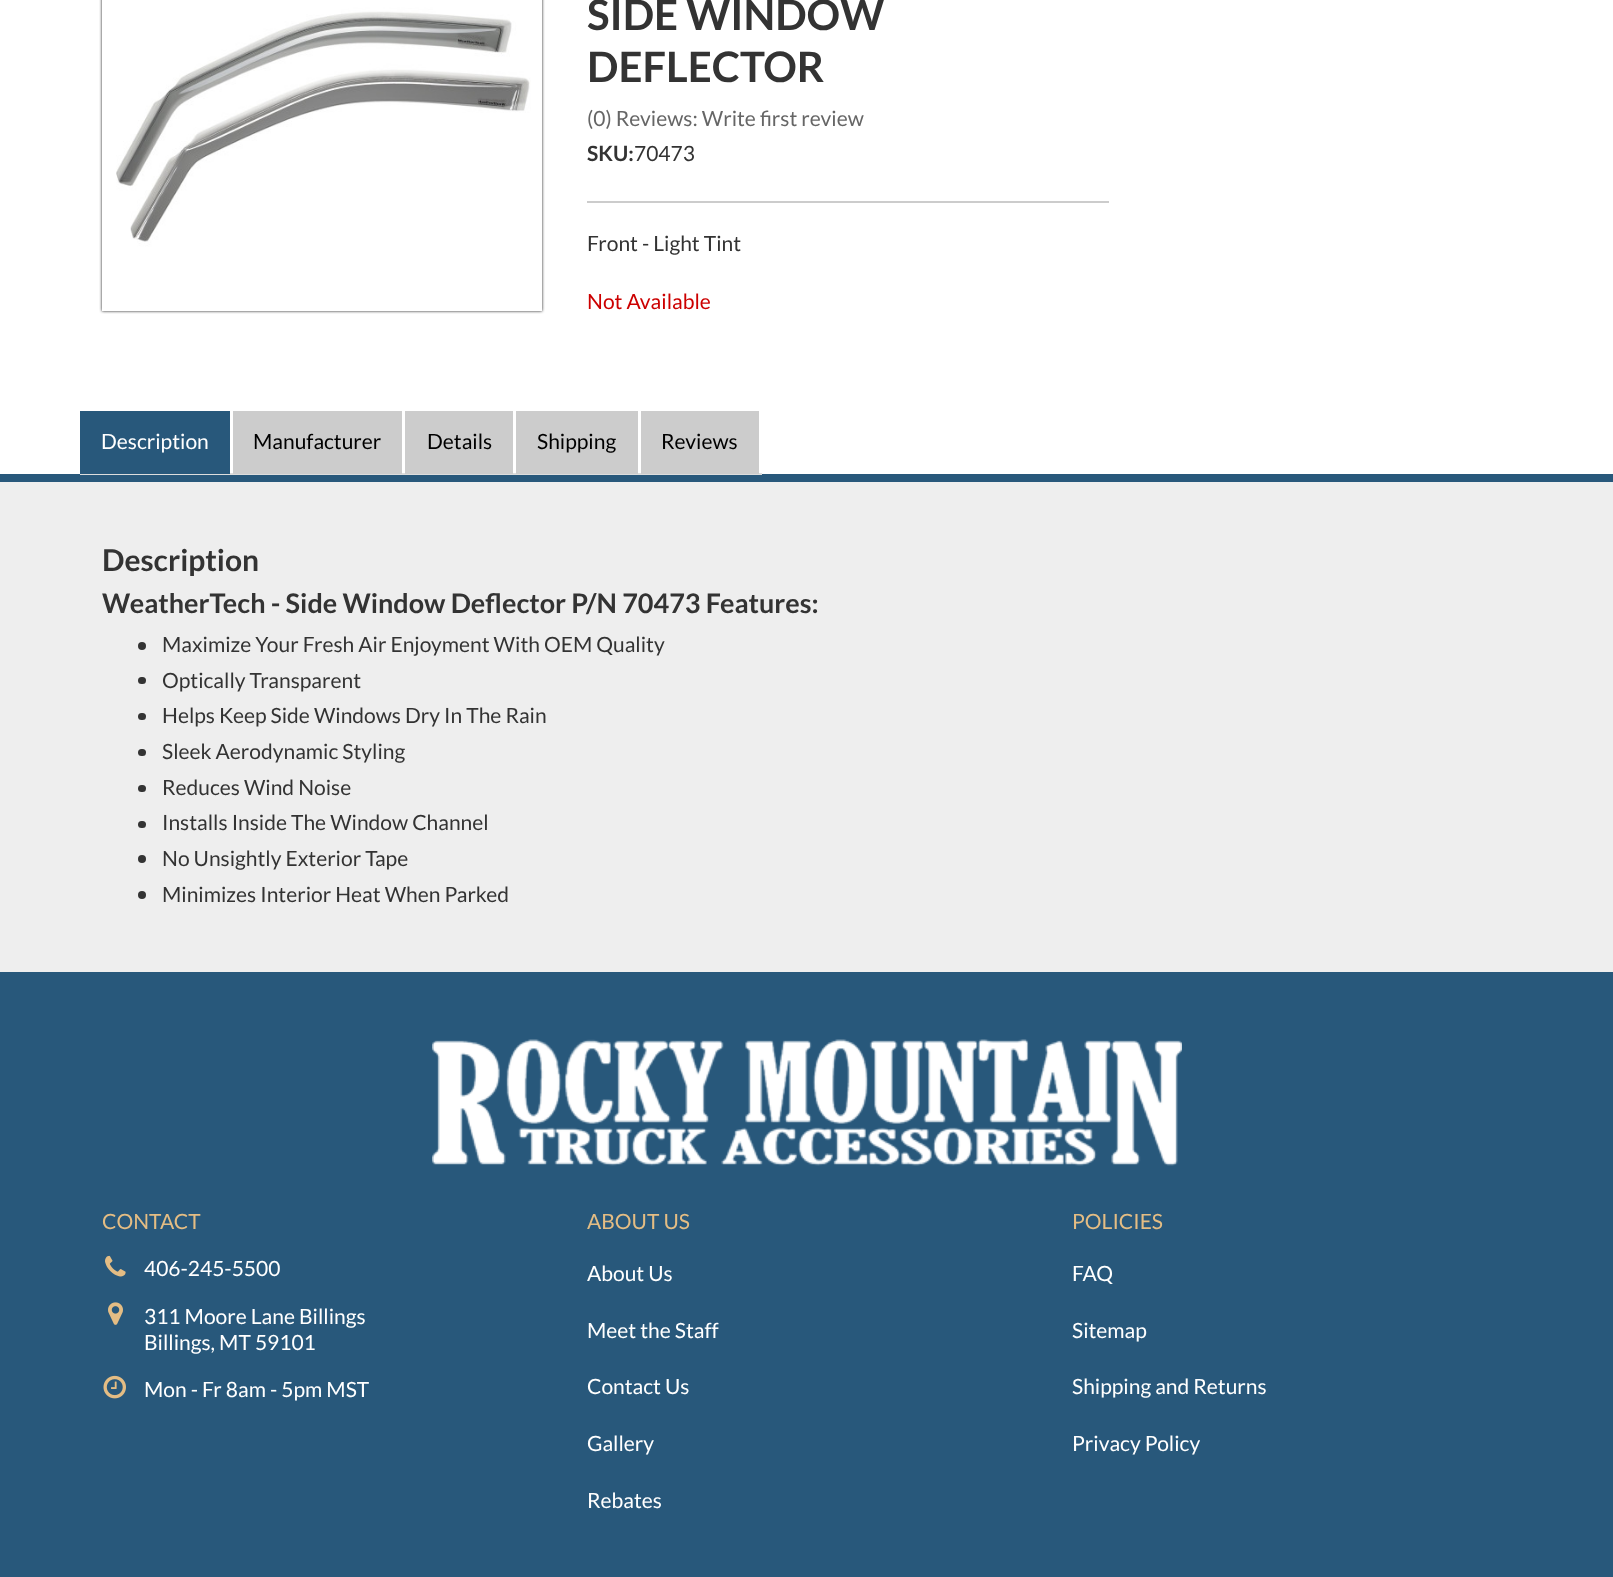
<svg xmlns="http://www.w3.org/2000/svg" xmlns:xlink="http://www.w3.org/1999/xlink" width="1613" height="1577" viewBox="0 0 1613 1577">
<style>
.cls-1{font:bold 42px Lato;fill:#333333}
.cls-2{font:21px Lato;fill:#666666}
.cls-3{font:bold 21px Lato;fill:#333333}
.cls-4{font:21px Lato;fill:#333333}
.cls-5{font:21px Lato;fill:#cc0000}
.cls-6{font:21px Lato;fill:#ffffff}
.cls-7{font:21px Lato;fill:#000000}
.cls-8{font:bold 30px Lato;fill:#333333}
.cls-9{font:bold 27px Lato;fill:#333333}
.cls-10{font:21px Lato;fill:#e4bd84}
</style>
<defs>
<clipPath id="clip1"><path d="M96 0H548V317H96ZM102-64H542V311H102Z" clip-rule="evenodd"/></clipPath>
</defs>
<rect width="100%" height="100%" fill="#ffffff"/>
<g clip-path="url(#clip1)">
<rect fill="#000000" fill-opacity="0.5" filter="blur(1.5px)" x="102" y="-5" width="440" height="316"/>
<rect fill="#000000" fill-opacity="0.5" filter="blur(1.5px)" x="102" y="-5" width="440" height="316"/>
</g>
<image xlink:href="image0.png" x="116" y="0" width="426" height="288"/>
<rect fill="#cccccc" x="587" y="201" width="522" height="2"/>
<rect fill="#eeeeee" x="0" y="482" width="1613" height="490"/>
<rect fill="#28587b" x="0" y="474" width="1613" height="8"/>
<rect fill="#dddddd" x="80" y="473" width="682" height="2"/>
<rect fill="#28587b" x="80" y="411" width="150" height="63"/>
<rect fill="#cccccc" x="233" y="411" width="169" height="63"/>
<rect fill="#cccccc" x="405" y="411" width="108" height="63"/>
<rect fill="#cccccc" x="516" y="411" width="122" height="63"/>
<rect fill="#cccccc" x="641" y="411" width="118" height="63"/>
<circle fill="#333333" cx="142" cy="646" r="4"/>
<rect fill="#333333" x="138" y="677" width="8" height="7" rx="3.5"/>
<rect fill="#333333" x="138" y="713" width="8" height="7" rx="3.5"/>
<rect fill="#333333" x="138" y="749" width="8" height="7" rx="3.5"/>
<rect fill="#333333" x="138" y="785" width="8" height="7" rx="3.5"/>
<rect fill="#333333" x="138" y="821" width="8" height="7" rx="3.5"/>
<circle fill="#333333" cx="142" cy="859" r="4"/>
<circle fill="#333333" cx="142" cy="895" r="4"/>
<rect fill="#28587b" x="0" y="972" width="1613" height="605"/>
<image xlink:href="image1.png" x="432" y="1039" width="750" height="127"/>
<image xlink:href="image2.png" x="105" y="1255" width="21" height="22"/>
<image xlink:href="image3.png" x="108" y="1302" width="15" height="23"/>
<image xlink:href="image4.png" x="103" y="1375" width="23" height="24"/>
<text class="cls-1"><tspan x="587" y="30">SIDE WINDOW</tspan><tspan x="587" y="82">DEFLECTOR</tspan></text>
<text class="cls-2" x="587" y="126">(0) Reviews: Write first review</text>
<text class="cls-3" x="587" y="161">SKU:</text>
<text class="cls-4" x="634" y="161">70473</text>
<text class="cls-4" x="587" y="251">Front - Light Tint</text>
<text class="cls-5" x="587" y="309">Not Available</text>
<text class="cls-6" x="101" y="449">Description</text>
<text class="cls-7" x="253" y="449">Manufacturer</text>
<text class="cls-7" x="427" y="449">Details</text>
<text class="cls-7" x="537" y="449">Shipping</text>
<text class="cls-7" x="661" y="449">Reviews</text>
<text class="cls-8" x="102" y="571">Description</text>
<text class="cls-9" x="102" y="613">WeatherTech - Side Window Deflector P/N 70473 Features:</text>
<text class="cls-4"><tspan x="162" y="652">Maximize Your Fresh Air Enjoyment With OEM Quality</tspan><tspan x="162" y="688">Optically Transparent</tspan><tspan x="162" y="723">Helps Keep Side Windows Dry In The Rain</tspan><tspan x="162" y="759">Sleek Aerodynamic Styling</tspan><tspan x="162" y="795">Reduces Wind Noise</tspan><tspan x="162" y="830">Installs Inside The Window Channel</tspan><tspan x="162" y="866">No Unsightly Exterior Tape</tspan><tspan x="162" y="902">Minimizes Interior Heat When Parked</tspan></text>
<text class="cls-10" x="102" y="1229">CONTACT</text>
<text class="cls-6" x="144" y="1276">406-245-5500</text>
<text class="cls-6"><tspan x="144" y="1324">311 Moore Lane Billings</tspan><tspan x="144" y="1350">Billings, MT 59101</tspan></text>
<text class="cls-6" x="144" y="1397">Mon - Fr 8am - 5pm MST</text>
<text class="cls-10" x="587" y="1229">ABOUT US</text>
<text class="cls-6" x="587" y="1281">About Us</text>
<text class="cls-6" x="587" y="1338">Meet the Staff</text>
<text class="cls-6" x="587" y="1394">Contact Us</text>
<text class="cls-6" x="587" y="1451">Gallery</text>
<text class="cls-6" x="587" y="1508">Rebates</text>
<text class="cls-10" x="1072" y="1229">POLICIES</text>
<text class="cls-6" x="1072" y="1281">FAQ</text>
<text class="cls-6" x="1072" y="1338">Sitemap</text>
<text class="cls-6" x="1072" y="1394">Shipping and Returns</text>
<text class="cls-6" x="1072" y="1451">Privacy Policy</text>
</svg>
